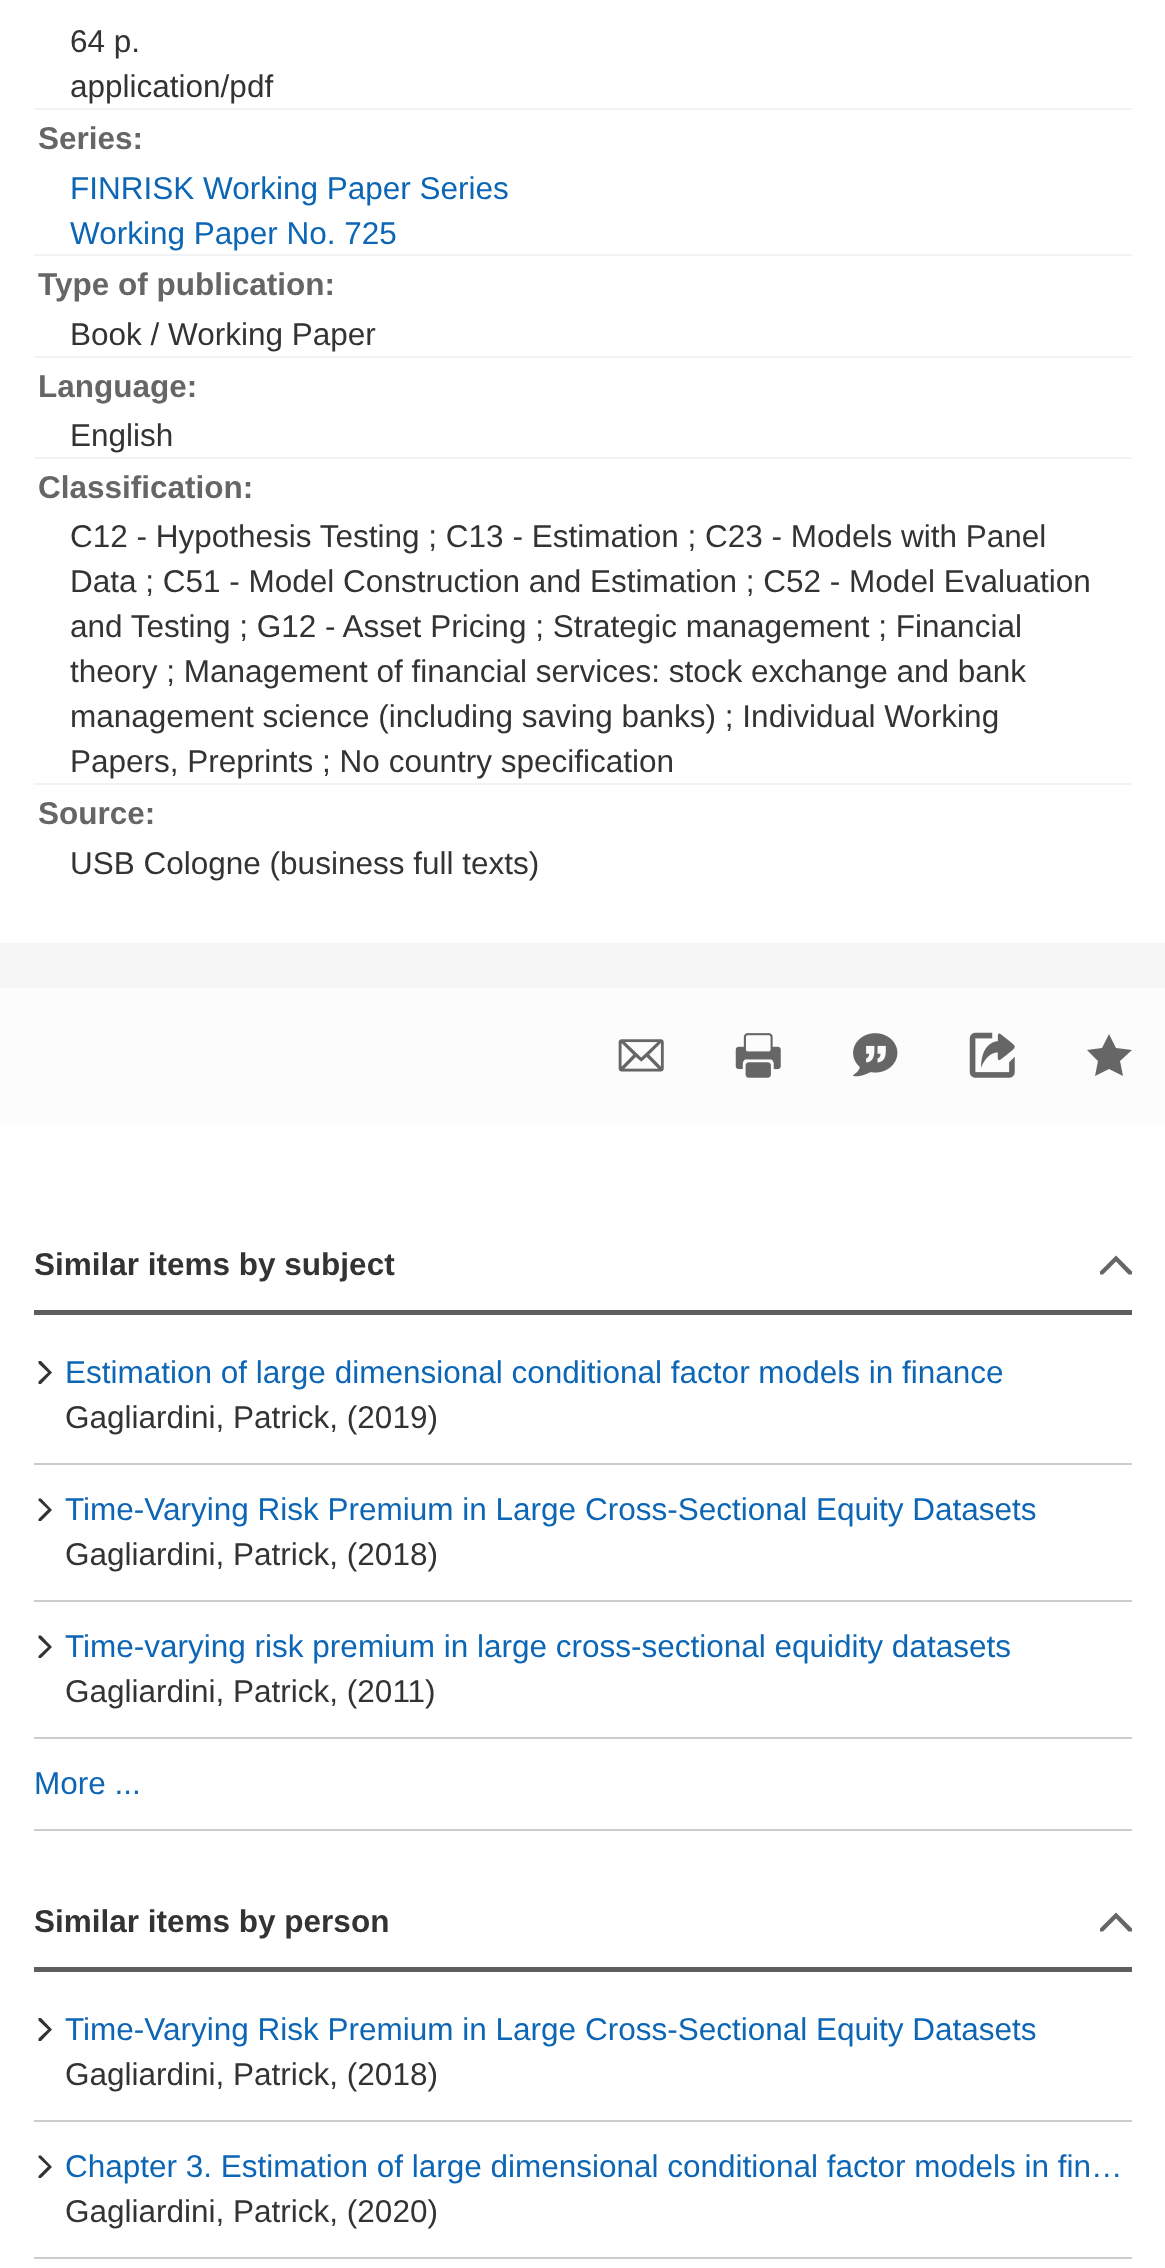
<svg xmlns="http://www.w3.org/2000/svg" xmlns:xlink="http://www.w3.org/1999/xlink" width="1165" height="2268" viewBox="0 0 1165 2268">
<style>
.cls-1{font:31.5px Liberation Sans;fill:#333333}
.cls-2{font:bold 31.5px Liberation Sans;fill:#666666}
.cls-3{font:31.5px Liberation Sans;fill:#0c66b5}
.cls-4{font:bold 31.5px Liberation Sans;fill:#333333}
</style>
<rect width="100%" height="100%" fill="#ffffff"/>
<rect fill="#f6f6f6" x="0" y="943" width="1165" height="45"/>
<rect fill="#f3f3f3" x="34" y="108" width="1098" height="2"/>
<rect fill="#f3f3f3" x="34" y="254" width="1098" height="2"/>
<rect fill="#f3f3f3" x="34" y="356" width="1098" height="2"/>
<rect fill="#f3f3f3" x="34" y="457" width="1098" height="2"/>
<rect fill="#f3f3f3" x="34" y="783" width="1098" height="2"/>
<rect fill="#fcfcfc" x="0" y="988" width="1165" height="135"/>
<image xlink:href="image0.png" x="618" y="1039" width="46" height="33"/>
<image xlink:href="image1.png" x="735" y="1033" width="46" height="45"/>
<image xlink:href="image2.png" x="853" y="1033" width="45" height="44"/>
<image xlink:href="image3.png" x="969" y="1032" width="46" height="46"/>
<path fill="#666666" d="M1109 1034L1102 1048L1087 1050L1098 1061L1095 1076L1109 1069L1123 1076L1120 1061L1132 1050L1116 1048Z"/>
<rect fill="#5e5e5e" x="34" y="1310" width="1098" height="5"/>
<path fill="#666666" d="M1103 1274.5H1100V1271.5L1116 1255.5L1132 1271.5V1274.5H1128.5L1116 1261.5Z"/>
<rect fill="#cccccc" x="34" y="1463" width="1098" height="2"/>
<path fill="#333333" d="M38.5 1363.5V1361H41L52 1372.5L41 1384H38.5V1381.5L48 1372.5Z"/>
<rect fill="#cccccc" x="34" y="1600" width="1098" height="2"/>
<path fill="#333333" d="M38.5 1500.5V1498.5H41L52 1510L41 1521H38.5V1519L48 1509.5Z"/>
<rect fill="#cccccc" x="34" y="1737" width="1098" height="2"/>
<path fill="#333333" d="M38.5 1638V1635.5H41L52 1647L41 1658H38.5V1656L48 1647Z"/>
<rect fill="#cccccc" x="34" y="1829" width="1098" height="2"/>
<rect fill="#5e5e5e" x="34" y="1967" width="1098" height="5"/>
<path fill="#666666" d="M1103 1931.5H1100V1928.5L1116 1912.5L1132 1928.5V1931.5H1128.5L1116 1918.5Z"/>
<rect fill="#cccccc" x="34" y="2120" width="1098" height="2"/>
<path fill="#333333" d="M38.5 2020.5V2018H41L52 2029.5L41 2041H38.5V2038.5L48 2029.5Z"/>
<rect fill="#cccccc" x="34" y="2257" width="1098" height="2"/>
<path fill="#333333" d="M38.5 2157.5V2155.5H41L52 2167L41 2178H38.5V2176L48 2166.5Z"/>
<text class="cls-1"><tspan x="70" y="52">64 p.</tspan><tspan x="70" y="97">application/pdf</tspan></text>
<text class="cls-2" x="38" y="149">Series:</text>
<text class="cls-3"><tspan x="70" y="199">FINRISK Working Paper Series</tspan><tspan x="70" y="244">Working Paper No. 725</tspan></text>
<text class="cls-2" x="38" y="295">Type of publication:</text>
<text class="cls-1" x="70" y="345">Book / Working Paper</text>
<text class="cls-2" x="38" y="397">Language:</text>
<text class="cls-1" x="70" y="446">English</text>
<text class="cls-2" x="38" y="498">Classification:</text>
<text class="cls-1"><tspan x="70" y="547">C12 - Hypothesis Testing ; C13 - Estimation ; C23 - Models with Panel</tspan><tspan x="70" y="592">Data ; C51 - Model Construction and Estimation ; C52 - Model Evaluation</tspan><tspan x="70" y="637">and Testing ; G12 - Asset Pricing ; Strategic management ; Financial</tspan><tspan x="70" y="682">theory ; Management of financial services: stock exchange and bank</tspan><tspan x="70" y="727">management science (including saving banks) ; Individual Working</tspan><tspan x="70" y="772">Papers, Preprints ; No country specification</tspan></text>
<text class="cls-2" x="38" y="824">Source:</text>
<text class="cls-1" x="70" y="874">USB Cologne (business full texts)</text>
<text class="cls-4" x="34" y="1275">Similar items by subject</text>
<text class="cls-3" x="65" y="1383">Estimation of large dimensional conditional factor models in finance</text>
<text class="cls-1" x="65" y="1428">Gagliardini, Patrick, (2019)</text>
<text class="cls-3" x="65" y="1520">Time-Varying Risk Premium in Large Cross-Sectional Equity Datasets</text>
<text class="cls-1" x="65" y="1565">Gagliardini, Patrick, (2018)</text>
<text class="cls-3" x="65" y="1657">Time-varying risk premium in large cross-sectional equidity datasets</text>
<text class="cls-1" x="65" y="1702">Gagliardini, Patrick, (2011)</text>
<text class="cls-3" x="34" y="1794">More ...</text>
<text class="cls-4" x="34" y="1932">Similar items by person</text>
<text class="cls-3" x="65" y="2040">Time-Varying Risk Premium in Large Cross-Sectional Equity Datasets</text>
<text class="cls-1" x="65" y="2085">Gagliardini, Patrick, (2018)</text>
<text class="cls-3" x="65" y="2177">Chapter 3. Estimation of large dimensional conditional factor models in fin…</text>
<text class="cls-1" x="65" y="2222">Gagliardini, Patrick, (2020)</text>
</svg>
